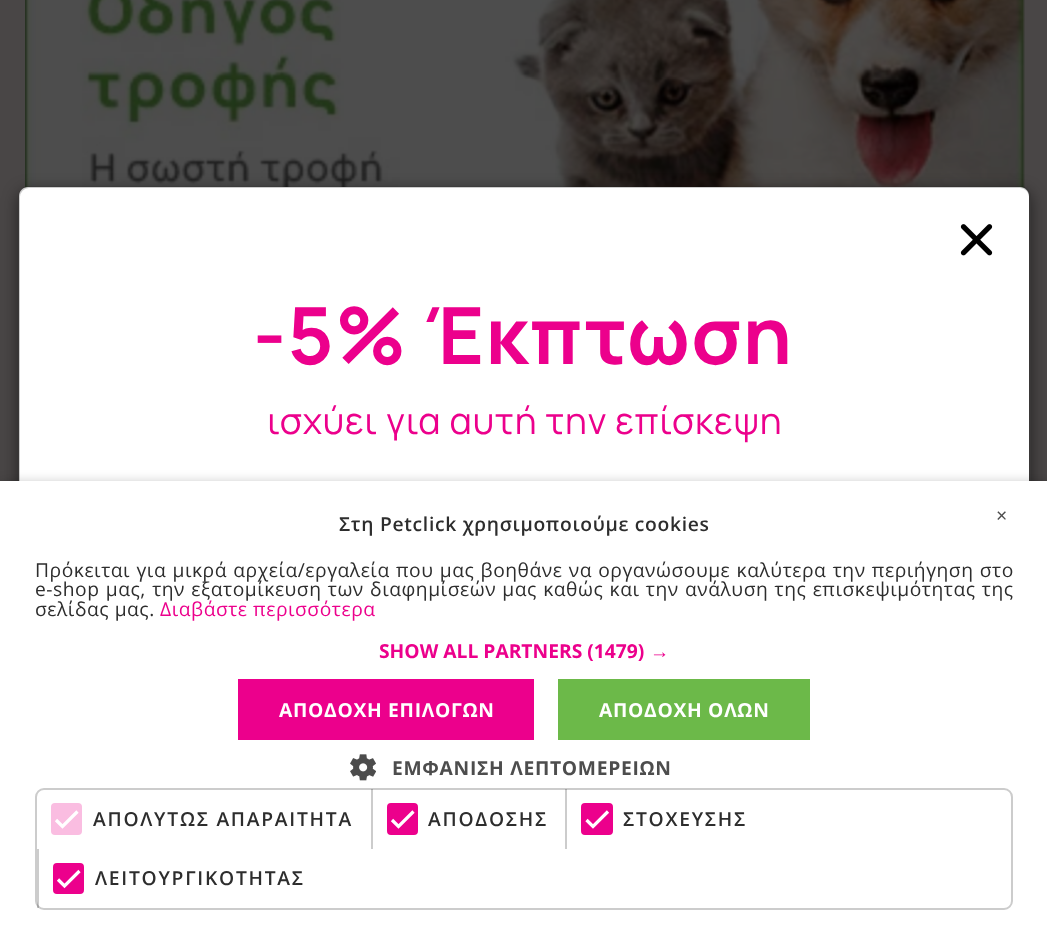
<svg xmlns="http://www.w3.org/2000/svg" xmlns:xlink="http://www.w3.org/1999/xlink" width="1047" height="926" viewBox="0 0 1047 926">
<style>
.cls-1{font:200 78.75px Manrope;letter-spacing:1.5px;fill:#ec008c}
.cls-2{font:200 36.75px 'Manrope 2';letter-spacing:0.75px;fill:#ec008c}
.cls-3{font:600 19.25px Open Sans;letter-spacing:0.7px;fill:#2d2d2d}
.cls-4{font:19.25px Liberation Sans;fill:#4d4d4d}
.cls-5{font:19.25px Open Sans;letter-spacing:0.53px;fill:#2d2d2d}
.cls-6{font:19.25px Open Sans;letter-spacing:0.53px;fill:#ec008c}
.cls-7{font:bold 19.25px Open Sans;fill:#ec008c}
.cls-8{font:bold 19.25px Liberation Sans;fill:#ec008c}
.cls-9{font:bold 19.25px Open Sans;letter-spacing:0.7px;fill:#ffffff}
.cls-10{font:bold 19.25px Open Sans;letter-spacing:0.7px;fill:#4d4d4d}
.cls-11{font:600 19.25px Open Sans;letter-spacing:1.75px;fill:#2d2d2d}
</style>
<defs>
<clipPath id="clip1"><path d="M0 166H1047V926H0ZM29 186H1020C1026 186 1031 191 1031 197V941C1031 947 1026 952 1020 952H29C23 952 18 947 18 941V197C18 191 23 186 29 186Z" clip-rule="evenodd"/></clipPath>
</defs>
<rect width="100%" height="100%" fill="#494646"/>
<image xlink:href="image0.png" x="25" y="0" width="1000" height="189"/>
<g clip-path="url(#clip1)">
<rect fill="#000000" fill-opacity="0.5" filter="blur(8px)" x="18" y="191" width="1013" height="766" rx="11"/>
</g>
<path fill="#ffffff" d="M28 187H1020C1025 187 1029 191 1029 196V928H19V196C19 191 23 187 28 187Z"/>
<rect fill="none" stroke="#000000" stroke-opacity="0.2" stroke-width="2" x="19" y="187" width="1011" height="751" rx="10"/>
<image xlink:href="image1.png" x="960" y="224" width="33" height="32"/>
<rect fill="#000000" fill-opacity="0.35" filter="blur(7px)" x="2" y="485" width="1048" height="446"/>
<rect fill="#ffffff" x="0" y="481" width="1047" height="445"/>
<rect fill="#ec008c" x="238" y="679" width="296" height="61"/>
<rect fill="#6cb949" x="558" y="679" width="252" height="61"/>
<image xlink:href="image2.png" x="350" y="754" width="26" height="27"/>
<rect fill="none" stroke="#cccccc" stroke-width="2" x="36" y="789" width="976" height="120" rx="8"/>
<rect fill="#fabde1" x="51" y="803" width="31" height="32" rx="4"/>
<path fill="none" stroke="#ffffff" stroke-width="3.2" d="M56 820L62.5 826.5L77.5 811.5"/>
<rect fill="#000000" fill-opacity="0.2" x="371" y="789" width="2" height="60"/>
<rect fill="#ec008c" stroke="#ec008c" stroke-width="4" x="389" y="805" width="27" height="28" rx="2"/>
<path fill="none" stroke="#ffffff" stroke-width="3.2" d="M392 820L398.5 826.5L413.5 811.5"/>
<rect fill="#000000" fill-opacity="0.2" x="565" y="789" width="2" height="60"/>
<rect fill="#ec008c" stroke="#ec008c" stroke-width="4" x="583" y="805" width="28" height="28" rx="2"/>
<path fill="none" stroke="#ffffff" stroke-width="3.2" d="M586.5 820L593 826.5L608 811.5"/>
<rect fill="#000000" fill-opacity="0.2" x="37" y="849" width="2" height="59"/>
<rect fill="#ec008c" stroke="#ec008c" stroke-width="4" x="55" y="865" width="27" height="27" rx="2"/>
<path fill="none" stroke="#ffffff" stroke-width="3.2" d="M58 879.5L64.5 886L79.5 871"/>
<text class="cls-1" x="253" y="364">-5% Έκπτωση</text>
<text class="cls-2" x="267" y="434">ισχύει για αυτή την επίσκεψη</text>
<text class="cls-3" x="339" y="531">Στη Petclick χρησιμοποιούμε cookies</text>
<text class="cls-4" x="996" y="522">×</text>
<text class="cls-5"><tspan x="35" y="577" word-spacing="0.75">Πρόκειται για μικρά αρχεία/εργαλεία που μας βοηθάνε να οργανώσουμε καλύτερα την περιήγηση στο</tspan><tspan x="35" y="596" word-spacing="0.75">e-shop μας, την εξατομίκευση των διαφημίσεών μας καθώς και την ανάλυση της επισκεψιμότητας της</tspan><tspan x="35" y="616">σελίδας μας.</tspan></text>
<text class="cls-6" x="160" y="616">Διαβάστε περισσότερα</text>
<text class="cls-7" x="379" y="658">SHOW ALL PARTNERS (1479)</text>
<text class="cls-8" x="650" y="658">→</text>
<text class="cls-9" x="279" y="717">ΑΠΟΔΟΧΗ ΕΠΙΛΟΓΩΝ</text>
<text class="cls-9" x="599" y="717">ΑΠΟΔΟΧΗ ΟΛΩΝ</text>
<text class="cls-10" x="392" y="775">ΕΜΦΑΝΙΣΗ ΛΕΠΤΟΜΕΡΕΙΩΝ</text>
<text class="cls-11" x="93" y="826">ΑΠΟΛΥΤΩΣ ΑΠΑΡΑΙΤΗΤΑ</text>
<text class="cls-11" x="428" y="826">ΑΠΟΔΟΣΗΣ</text>
<text class="cls-11" x="623" y="826">ΣΤΟΧΕΥΣΗΣ</text>
<text class="cls-11" x="95" y="885">ΛΕΙΤΟΥΡΓΙΚΟΤΗΤΑΣ</text>
</svg>
